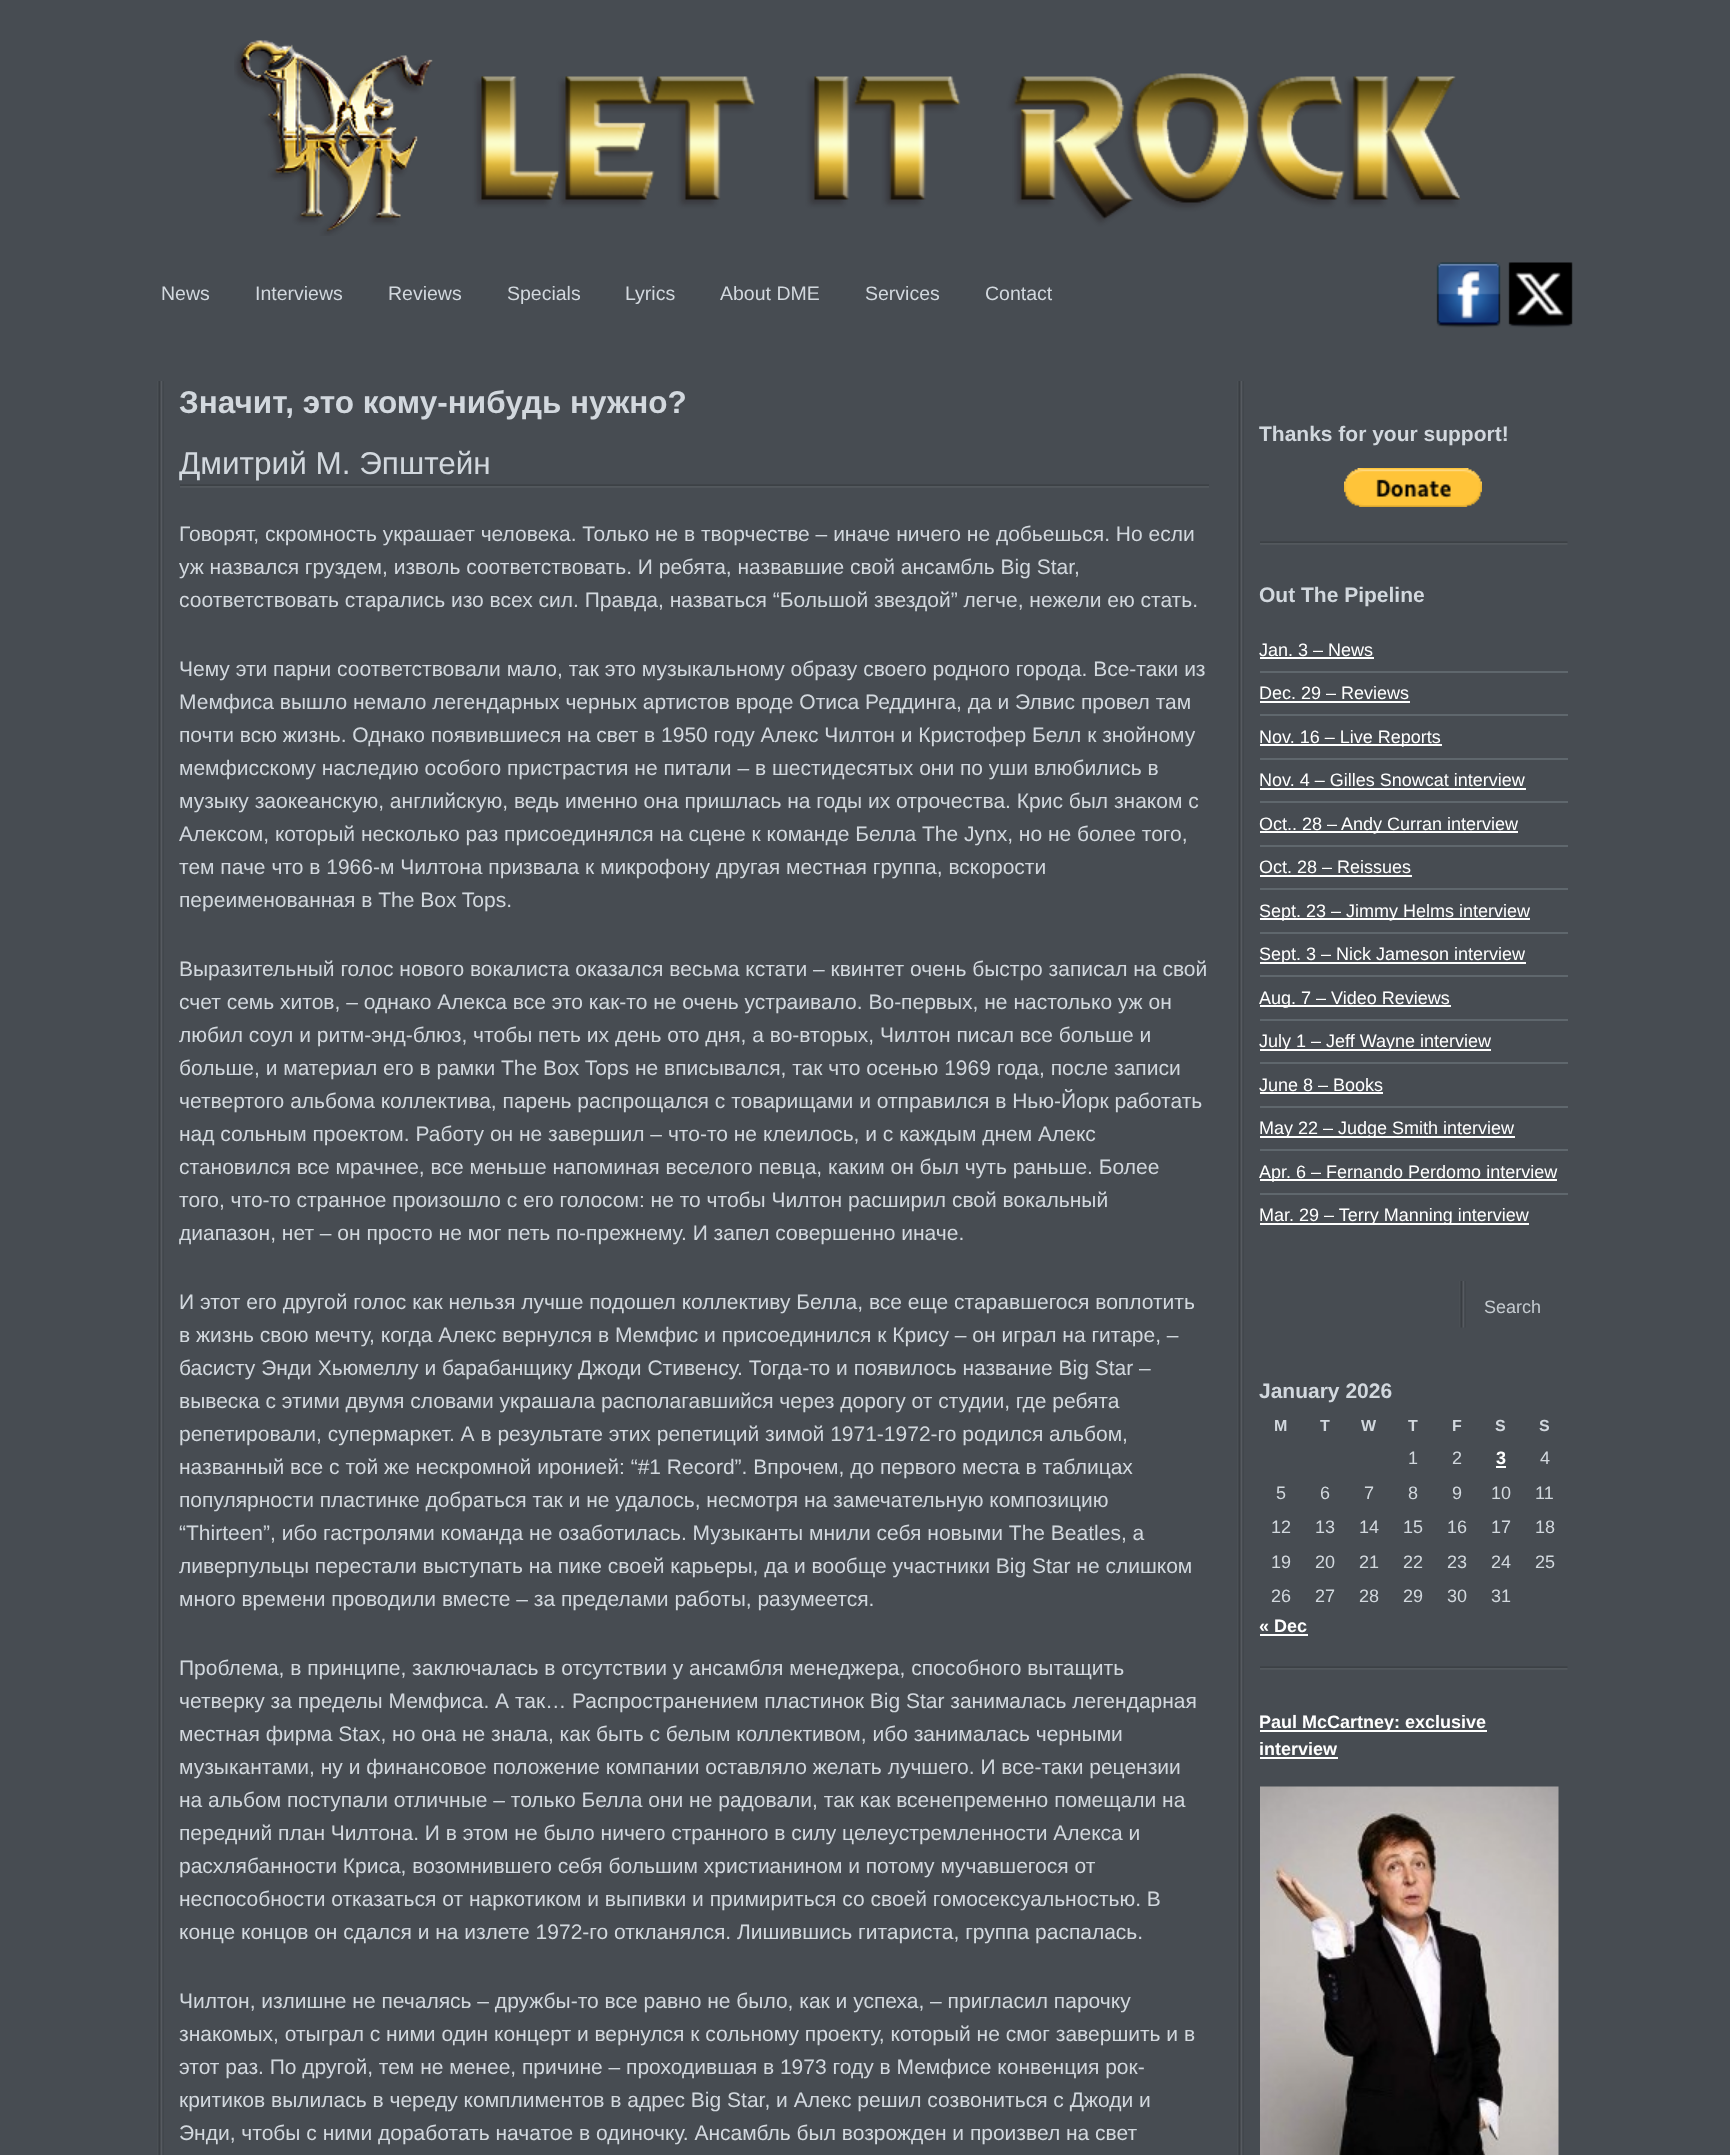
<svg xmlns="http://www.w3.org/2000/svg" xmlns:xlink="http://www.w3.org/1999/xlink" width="1730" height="2155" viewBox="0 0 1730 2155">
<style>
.cls-1{font:19.5px Liberation Sans;fill:#d2d8de}
.cls-2{font:bold 31.5px Liberation Sans;fill:#d2d8de}
.cls-3{font:31.5px Liberation Sans;fill:#d2d8de}
.cls-4{font:21px Liberation Sans;fill:#d2d8de}
.cls-5{font:bold 21px Liberation Sans;fill:#d2d8de}
.cls-6{font:18px Liberation Sans;fill:#ffffff}
.cls-7{font:18px Liberation Sans;fill:#c5cbd0}
.cls-8{font:bold 16px Liberation Sans;fill:#d2d8de}
.cls-9{font:18px Liberation Sans;fill:#d2d8de}
.cls-10{font:bold 18px Liberation Sans;fill:#ffffff}
</style>
<rect width="100%" height="100%" fill="#474c52"/>
<image xlink:href="image0.png" x="234" y="40" width="1227" height="196"/>
<image xlink:href="image1.png" x="1436" y="262" width="65" height="66"/>
<image xlink:href="image2.png" x="1508" y="262" width="65" height="66"/>
<image xlink:href="image3.png" x="157" y="381" width="7" height="1774"/>
<image xlink:href="image4.png" x="180" y="484" width="1029" height="4"/>
<image xlink:href="image5.png" x="1237" y="381" width="7" height="1774"/>
<image xlink:href="image6.png" x="1344" y="468" width="138" height="39"/>
<image xlink:href="image7.png" x="1260" y="541" width="308" height="4"/>
<rect fill="#ffffff" x="1260" y="657" width="114" height="2"/>
<rect fill="#5f676d" x="1260" y="671" width="308" height="2"/>
<rect fill="#ffffff" x="1260" y="701" width="150" height="2"/>
<rect fill="#5f676d" x="1260" y="714" width="308" height="2"/>
<rect fill="#ffffff" x="1260" y="744" width="182" height="2"/>
<rect fill="#5f676d" x="1260" y="758" width="308" height="2"/>
<rect fill="#ffffff" x="1260" y="788" width="266" height="2"/>
<rect fill="#5f676d" x="1260" y="801" width="308" height="2"/>
<rect fill="#ffffff" x="1260" y="831" width="258" height="2"/>
<rect fill="#5f676d" x="1260" y="845" width="308" height="2"/>
<rect fill="#ffffff" x="1260" y="875" width="152" height="2"/>
<rect fill="#5f676d" x="1260" y="888" width="308" height="2"/>
<rect fill="#ffffff" x="1260" y="918" width="270" height="2"/>
<rect fill="#5f676d" x="1260" y="932" width="308" height="2"/>
<rect fill="#ffffff" x="1260" y="962" width="266" height="2"/>
<rect fill="#5f676d" x="1260" y="975" width="308" height="2"/>
<rect fill="#ffffff" x="1260" y="1005" width="191" height="2"/>
<rect fill="#5f676d" x="1260" y="1019" width="308" height="2"/>
<rect fill="#ffffff" x="1260" y="1049" width="231" height="2"/>
<rect fill="#5f676d" x="1260" y="1062" width="308" height="2"/>
<rect fill="#ffffff" x="1260" y="1092" width="123" height="2"/>
<rect fill="#5f676d" x="1260" y="1106" width="308" height="2"/>
<rect fill="#ffffff" x="1260" y="1136" width="255" height="2"/>
<rect fill="#5f676d" x="1260" y="1149" width="308" height="2"/>
<rect fill="#ffffff" x="1260" y="1179" width="297" height="2"/>
<rect fill="#5f676d" x="1260" y="1193" width="308" height="2"/>
<rect fill="#ffffff" x="1260" y="1223" width="269" height="2"/>
<image xlink:href="image8.png" x="1459" y="1281" width="7" height="47"/>
<rect fill="#ffffff" x="1496" y="1466" width="10" height="2"/>
<rect fill="#ffffff" x="1260" y="1634" width="48" height="2"/>
<image xlink:href="image7.png" x="1260" y="1666" width="308" height="4"/>
<rect fill="#ffffff" x="1260" y="1730" width="227" height="2"/>
<rect fill="#ffffff" x="1260" y="1757" width="78" height="2"/>
<image xlink:href="image9.png" x="1260" y="1786" width="299" height="369"/>
<text class="cls-1" x="161" y="300">News</text>
<text class="cls-1" x="255" y="300">Interviews</text>
<text class="cls-1" x="388" y="300">Reviews</text>
<text class="cls-1" x="507" y="300">Specials</text>
<text class="cls-1" x="625" y="300">Lyrics</text>
<text class="cls-1" x="720" y="300">About DME</text>
<text class="cls-1" x="865" y="300">Services</text>
<text class="cls-1" x="985" y="300">Contact</text>
<text class="cls-2" x="179" y="413">Значит, это кому-нибудь нужно?</text>
<text class="cls-3" x="179" y="474">Дмитрий М. Эпштейн</text>
<text class="cls-4"><tspan x="179" y="541">Говорят, скромность украшает человека. Только не в творчестве – иначе ничего не добьешься. Но если</tspan><tspan x="179" y="574">уж назвался груздем, изволь соответствовать. И ребята, назвавшие свой ансамбль Big Star,</tspan><tspan x="179" y="607">соответствовать старались изо всех сил. Правда, назваться “Большой звездой” легче, нежели ею стать.</tspan></text>
<text class="cls-4"><tspan x="179" y="676">Чему эти парни соответствовали мало, так это музыкальному образу своего родного города. Все-таки из</tspan><tspan x="179" y="709">Мемфиса вышло немало легендарных черных артистов вроде Отиса Реддинга, да и Элвис провел там</tspan><tspan x="179" y="742">почти всю жизнь. Однако появившиеся на свет в 1950 году Алекс Чилтон и Кристофер Белл к знойному</tspan><tspan x="179" y="775">мемфисскому наследию особого пристрастия не питали – в шестидесятых они по уши влюбились в</tspan><tspan x="179" y="808">музыку заокеанскую, английскую, ведь именно она пришлась на годы их отрочества. Крис был знаком с</tspan><tspan x="179" y="841">Алексом, который несколько раз присоединялся на сцене к команде Белла The Jynx, но не более того,</tspan><tspan x="179" y="874">тем паче что в 1966-м Чилтона призвала к микрофону другая местная группа, вскорости</tspan><tspan x="179" y="907">переименованная в The Box Tops.</tspan></text>
<text class="cls-4"><tspan x="179" y="976">Выразительный голос нового вокалиста оказался весьма кстати – квинтет очень быстро записал на свой</tspan><tspan x="179" y="1009">счет семь хитов, – однако Алекса все это как-то не очень устраивало. Во-первых, не настолько уж он</tspan><tspan x="179" y="1042">любил соул и ритм-энд-блюз, чтобы петь их день ото дня, а во-вторых, Чилтон писал все больше и</tspan><tspan x="179" y="1075">больше, и материал его в рамки The Box Tops не вписывался, так что осенью 1969 года, после записи</tspan><tspan x="179" y="1108">четвертого альбома коллектива, парень распрощался с товарищами и отправился в Нью-Йорк работать</tspan><tspan x="179" y="1141">над сольным проектом. Работу он не завершил – что-то не клеилось, и с каждым днем Алекс</tspan><tspan x="179" y="1174">становился все мрачнее, все меньше напоминая веселого певца, каким он был чуть раньше. Более</tspan><tspan x="179" y="1207">того, что-то странное произошло с его голосом: не то чтобы Чилтон расширил свой вокальный</tspan><tspan x="179" y="1240">диапазон, нет – он просто не мог петь по-прежнему. И запел совершенно иначе.</tspan></text>
<text class="cls-4"><tspan x="179" y="1309">И этот его другой голос как нельзя лучше подошел коллективу Белла, все еще старавшегося воплотить</tspan><tspan x="179" y="1342">в жизнь свою мечту, когда Алекс вернулся в Мемфис и присоединился к Крису – он играл на гитаре, –</tspan><tspan x="179" y="1375">басисту Энди Хьюмеллу и барабанщику Джоди Стивенсу. Тогда-то и появилось название Big Star –</tspan><tspan x="179" y="1408">вывеска с этими двумя словами украшала располагавшийся через дорогу от студии, где ребята</tspan><tspan x="179" y="1441">репетировали, супермаркет. А в результате этих репетиций зимой 1971-1972-го родился альбом,</tspan><tspan x="179" y="1474">названный все с той же нескромной иронией: “#1 Record”. Впрочем, до первого места в таблицах</tspan><tspan x="179" y="1507">популярности пластинке добраться так и не удалось, несмотря на замечательную композицию</tspan><tspan x="179" y="1540">“Thirteen”, ибо гастролями команда не озаботилась. Музыканты мнили себя новыми The Beatles, а</tspan><tspan x="179" y="1573">ливерпульцы перестали выступать на пике своей карьеры, да и вообще участники Big Star не слишком</tspan><tspan x="179" y="1606">много времени проводили вместе – за пределами работы, разумеется.</tspan></text>
<text class="cls-4"><tspan x="179" y="1675">Проблема, в принципе, заключалась в отсутствии у ансамбля менеджера, способного вытащить</tspan><tspan x="179" y="1708">четверку за пределы Мемфиса. А так… Распространением пластинок Big Star занималась легендарная</tspan><tspan x="179" y="1741">местная фирма Stax, но она не знала, как быть с белым коллективом, ибо занималась черными</tspan><tspan x="179" y="1774">музыкантами, ну и финансовое положение компании оставляло желать лучшего. И все-таки рецензии</tspan><tspan x="179" y="1807">на альбом поступали отличные – только Белла они не радовали, так как всенепременно помещали на</tspan><tspan x="179" y="1840">передний план Чилтона. И в этом не было ничего странного в силу целеустремленности Алекса и</tspan><tspan x="179" y="1873">расхлябанности Криса, возомнившего себя большим христианином и потому мучавшегося от</tspan><tspan x="179" y="1906">неспособности отказаться от наркотиком и выпивки и примириться со своей гомосексуальностью. В</tspan><tspan x="179" y="1939">конце концов он сдался и на излете 1972-го откланялся. Лишившись гитариста, группа распалась.</tspan></text>
<text class="cls-4"><tspan x="179" y="2008">Чилтон, излишне не печалясь – дружбы-то все равно не было, как и успеха, – пригласил парочку</tspan><tspan x="179" y="2041">знакомых, отыграл с ними один концерт и вернулся к сольному проекту, который не смог завершить и в</tspan><tspan x="179" y="2074">этот раз. По другой, тем не менее, причине – проходившая в 1973 году в Мемфисе конвенция рок-</tspan><tspan x="179" y="2107">критиков вылилась в череду комплиментов в адрес Big Star, и Алекс решил созвониться с Джоди и</tspan><tspan x="179" y="2140">Энди, чтобы с ними доработать начатое в одиночку. Ансамбль был возрожден и произвел на свет</tspan></text>
<text class="cls-5" x="1259" y="441">Thanks for your support!</text>
<text class="cls-5" x="1259" y="602">Out The Pipeline</text>
<text class="cls-6" x="1259" y="656">Jan. 3 – News</text>
<text class="cls-6" x="1259" y="699">Dec. 29 – Reviews</text>
<text class="cls-6" x="1259" y="743">Nov. 16 – Live Reports</text>
<text class="cls-6" x="1259" y="786">Nov. 4 – Gilles Snowcat interview</text>
<text class="cls-6" x="1259" y="830">Oct.. 28 – Andy Curran interview</text>
<text class="cls-6" x="1259" y="873">Oct. 28 – Reissues</text>
<text class="cls-6" x="1259" y="917">Sept. 23 – Jimmy Helms interview</text>
<text class="cls-6" x="1259" y="960">Sept. 3 – Nick Jameson interview</text>
<text class="cls-6" x="1259" y="1004">Aug. 7 – Video Reviews</text>
<text class="cls-6" x="1259" y="1047">July 1 – Jeff Wayne interview</text>
<text class="cls-6" x="1259" y="1091">June 8 – Books</text>
<text class="cls-6" x="1259" y="1134">May 22 – Judge Smith interview</text>
<text class="cls-6" x="1259" y="1178">Apr. 6 – Fernando Perdomo interview</text>
<text class="cls-6" x="1259" y="1221">Mar. 29 – Terry Manning interview</text>
<text class="cls-7" x="1484" y="1313">Search</text>
<text class="cls-5" x="1259" y="1398">January 2026</text>
<text class="cls-8" x="1274" y="1431">M</text>
<text class="cls-8" x="1320" y="1431">T</text>
<text class="cls-8" x="1361" y="1431">W</text>
<text class="cls-8" x="1408" y="1431">T</text>
<text class="cls-8" x="1452" y="1431">F</text>
<text class="cls-8" x="1495" y="1431">S</text>
<text class="cls-8" x="1539" y="1431">S</text>
<text class="cls-9" x="1408" y="1464">1</text>
<text class="cls-9" x="1452" y="1464">2</text>
<text class="cls-10" x="1496" y="1464">3</text>
<text class="cls-9" x="1540" y="1464">4</text>
<text class="cls-9" x="1276" y="1499">5</text>
<text class="cls-9" x="1320" y="1499">6</text>
<text class="cls-9" x="1364" y="1499">7</text>
<text class="cls-9" x="1408" y="1499">8</text>
<text class="cls-9" x="1452" y="1499">9</text>
<text class="cls-9" x="1491" y="1499">10</text>
<text class="cls-9" x="1535" y="1499">11</text>
<text class="cls-9" x="1271" y="1533">12</text>
<text class="cls-9" x="1315" y="1533">13</text>
<text class="cls-9" x="1359" y="1533">14</text>
<text class="cls-9" x="1403" y="1533">15</text>
<text class="cls-9" x="1447" y="1533">16</text>
<text class="cls-9" x="1491" y="1533">17</text>
<text class="cls-9" x="1535" y="1533">18</text>
<text class="cls-9" x="1271" y="1568">19</text>
<text class="cls-9" x="1315" y="1568">20</text>
<text class="cls-9" x="1359" y="1568">21</text>
<text class="cls-9" x="1403" y="1568">22</text>
<text class="cls-9" x="1447" y="1568">23</text>
<text class="cls-9" x="1491" y="1568">24</text>
<text class="cls-9" x="1535" y="1568">25</text>
<text class="cls-9" x="1271" y="1602">26</text>
<text class="cls-9" x="1315" y="1602">27</text>
<text class="cls-9" x="1359" y="1602">28</text>
<text class="cls-9" x="1403" y="1602">29</text>
<text class="cls-9" x="1447" y="1602">30</text>
<text class="cls-9" x="1491" y="1602">31</text>
<text class="cls-10" x="1259" y="1632">« Dec</text>
<text class="cls-10"><tspan x="1259" y="1728">Paul McCartney: exclusive</tspan><tspan x="1259" y="1755">interview</tspan></text>
</svg>
